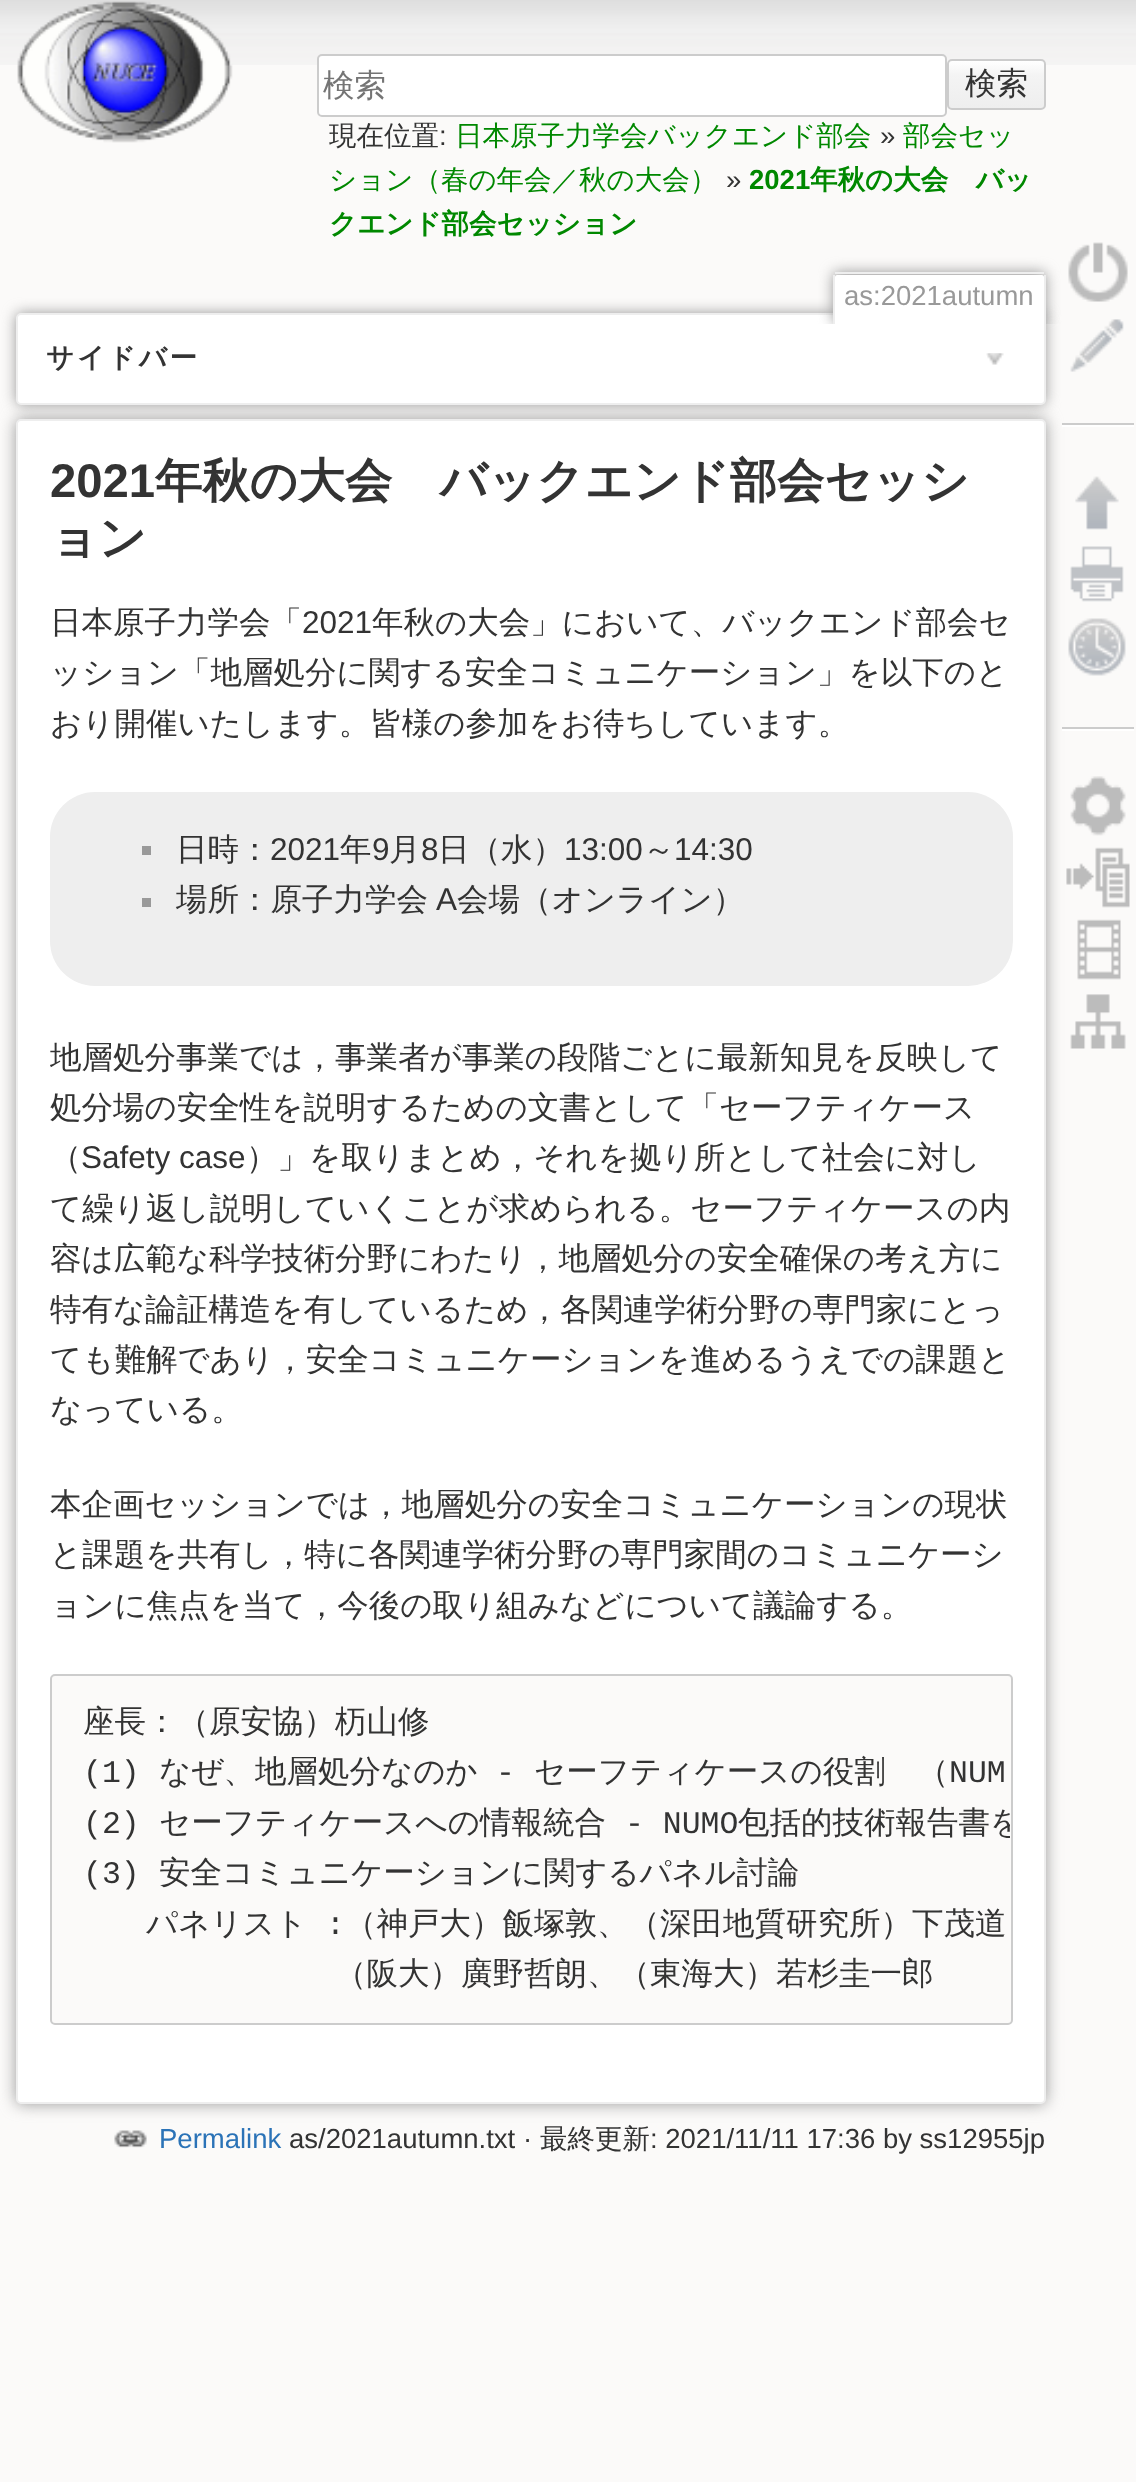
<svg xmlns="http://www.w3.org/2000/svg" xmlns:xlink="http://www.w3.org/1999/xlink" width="1136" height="2482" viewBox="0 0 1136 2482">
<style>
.cls-1{font:500 31.5px WenQuanYi Zen Hei;fill:#757575}
.cls-2{font:500 31.5px WenQuanYi Zen Hei;fill:#333333}
.cls-3{font:500 27.5px WenQuanYi Zen Hei;fill:#333333}
.cls-4{font:27.5px Liberation Sans;fill:#333333}
.cls-5{font:500 27.5px WenQuanYi Zen Hei;fill:#008800}
.cls-6{font:bold 27.5px Liberation Sans;fill:#008800}
.cls-7{font:bold 27.5px WenQuanYi Zen Hei;fill:#008800}
.cls-8{font:27.5px Liberation Sans;fill:#999999}
.cls-9{font:bold 47.25px Liberation Sans;fill:#333333}
.cls-10{font:bold 47.25px WenQuanYi Zen Hei;fill:#333333}
.cls-11{font:31.5px Liberation Sans;fill:#333333}
.cls-12{font:31.5px Liberation Mono;fill:#333333}
.cls-13{font:27.5px Liberation Sans;fill:#2b73b7}
.cls-14{font:bold 27.5px WenQuanYi Zen Hei;letter-spacing:2.75px;fill:#333333}
</style>
<defs>
<clipPath id="clip1"><rect x="947" y="59" width="99" height="51" rx="5"/></clipPath>
<linearGradient id="g1" gradientUnits="userSpaceOnUse" x1="997" y1="61" x2="997" y2="108"><stop offset="0" stop-color="#ffffff"/><stop offset="0.3" stop-color="#f4f4f4"/><stop offset="0.99" stop-color="#eeeeee"/><stop offset="0.99" stop-color="#cccccc"/></linearGradient>
<clipPath id="clip2"><rect x="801" y="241" width="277" height="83"/></clipPath>
<clipPath id="clip3"><rect x="52" y="1676" width="958" height="347" rx="2"/></clipPath>
</defs>
<rect width="100%" height="100%" fill="#fbfaf9"/>
<image xlink:href="image0.png" x="0" y="0" width="1136" height="65"/>
<image xlink:href="image1.png" x="17" y="1" width="216" height="142"/>
<rect fill="#ffffff" stroke="#cccccc" stroke-width="2" x="318" y="55" width="628" height="61" rx="4"/>
<g clip-path="url(#clip1)">
<rect fill="url(#g1)" x="947" y="61" width="99" height="47"/>
</g>
<rect fill="none" stroke="#cccccc" stroke-width="2" x="948" y="60" width="97" height="49" rx="4"/>
<rect fill="#999999" filter="blur(8px)" x="16" y="419" width="1030" height="1685" rx="5"/>
<rect fill="#ffffff" stroke="#eeeeee" stroke-width="2" x="17" y="420" width="1028" height="1683" rx="4"/>
<rect fill="#999999" filter="blur(7px)" x="16" y="313" width="1030" height="92" rx="5"/>
<rect fill="#ffffff" stroke="#eeeeee" stroke-width="2" x="17" y="314" width="1028" height="90" rx="4"/>
<g clip-path="url(#clip2)">
<rect fill="#999999" filter="blur(7px)" x="833" y="272" width="213" height="52" rx="5"/>
</g>
<path fill="#ffffff" d="M837 275H1042C1043 275 1044 276 1044 277V324H835V277C835 276 836 275 837 275Z"/>
<rect fill="#eeeeee" x="835" y="272" width="209" height="2"/>
<rect fill="#eeeeee" x="1044" y="275" width="2" height="49"/>
<rect fill="#eeeeee" x="833" y="275" width="2" height="49"/>
<rect fill="#eeeeee" x="50" y="792" width="963" height="194" rx="45"/>
<rect fill="#999999" x="142" y="846" width="9" height="9"/>
<rect fill="#999999" x="142" y="898" width="9" height="9"/>
<rect fill="#fbfaf9" stroke="#cccccc" stroke-width="2" x="51" y="1675" width="961" height="349" rx="4"/>
<image xlink:href="image2.png" x="114" y="2130" width="33" height="18"/>
<image xlink:href="image3.png" x="1068" y="242" width="60" height="60"/>
<image xlink:href="image4.png" x="1070" y="319" width="54" height="53"/>
<rect fill="#cccccc" x="1062" y="423" width="72" height="2"/>
<rect fill="#ffffff" x="1062" y="425" width="72" height="2"/>
<image xlink:href="image5.png" x="1075" y="476" width="44" height="54"/>
<image xlink:href="image6.png" x="1070" y="546" width="54" height="56"/>
<image xlink:href="image7.png" x="1068" y="618" width="58" height="58"/>
<rect fill="#cccccc" x="1062" y="727" width="72" height="2"/>
<rect fill="#ffffff" x="1062" y="729" width="72" height="2"/>
<image xlink:href="image8.png" x="1070" y="776" width="56" height="60"/>
<image xlink:href="image9.png" x="1066" y="847" width="64" height="61"/>
<image xlink:href="image10.png" x="1077" y="919" width="44" height="61"/>
<image xlink:href="image11.png" x="1070" y="994" width="56" height="55"/>
<image xlink:href="image12.png" x="986" y="353" width="18" height="12"/>
<text class="cls-1" x="323" y="96">検索</text>
<text class="cls-2" x="965" y="94">検索</text>
<text class="cls-3" x="329" y="145">現在位置</text>
<text class="cls-4" x="439" y="145">:</text>
<text class="cls-5" x="455" y="145">日本原子力学会バックエンド部会</text>
<text class="cls-4" x="880" y="145">»</text>
<text class="cls-5" x="903" y="145">部会セッ</text>
<text class="cls-5" x="329" y="189">ション（春の年会／秋の大会）</text>
<text class="cls-4" x="726" y="189">»</text>
<text class="cls-6" x="749" y="189">2021</text>
<text class="cls-7" x="810" y="189">年秋の大会　バッ</text>
<text class="cls-7" x="329" y="233">クエンド部会セッション</text>
<text class="cls-8" x="844" y="305">as:2021autumn</text>
<text class="cls-9" x="50" y="497">2021</text>
<text class="cls-10" x="155" y="497">年秋の大会　バックエンド部会セッシ</text>
<text class="cls-10" x="50" y="554">ョン</text>
<text class="cls-2" x="50" y="633">日本原子力学会「</text>
<text class="cls-11" x="302" y="633">2021</text>
<text class="cls-2" x="372" y="633">年秋の大会」において、バックエンド部会セ</text>
<text class="cls-2"><tspan x="50" y="683">ッション「地層処分に関する安全コミュニケーション」を以下のと</tspan><tspan x="50" y="734">おり開催いたします。皆様の参加をお待ちしています。</tspan></text>
<text class="cls-2" x="176" y="860">日時：</text>
<text class="cls-11" x="270" y="860">2021</text>
<text class="cls-2" x="340" y="860">年</text>
<text class="cls-11" x="372" y="860">9</text>
<text class="cls-2" x="389" y="860">月</text>
<text class="cls-11" x="421" y="860">8</text>
<text class="cls-2" x="438" y="860">日（水）</text>
<text class="cls-11" x="564" y="860">13:00</text>
<text class="cls-2" x="643" y="860">～</text>
<text class="cls-11" x="674" y="860">14:30</text>
<text class="cls-2" x="176" y="910">場所：原子力学会</text>
<text class="cls-11" x="436" y="910">A</text>
<text class="cls-2" x="457" y="910">会場（オンライン）</text>
<text class="cls-2"><tspan x="50" y="1068">地層処分事業では，事業者が事業の段階ごとに最新知見を反映して</tspan><tspan x="50" y="1118">処分場の安全性を説明するための文書として「セーフティケース</tspan><tspan x="50" y="1168">（</tspan></text>
<text class="cls-11" x="81" y="1168">Safety case</text>
<text class="cls-2" x="246" y="1168">）」を取りまとめ，それを拠り所として社会に対し</text>
<text class="cls-2"><tspan x="50" y="1219">て繰り返し説明していくことが求められる。セーフティケースの内</tspan><tspan x="50" y="1269">容は広範な科学技術分野にわたり，地層処分の安全確保の考え方に</tspan><tspan x="50" y="1320">特有な論証構造を有しているため，各関連学術分野の専門家にとっ</tspan><tspan x="50" y="1370">ても難解であり，安全コミュニケーションを進めるうえでの課題と</tspan><tspan x="50" y="1420">なっている。</tspan></text>
<text class="cls-2"><tspan x="50" y="1515">本企画セッションでは，地層処分の安全コミュニケーションの現状</tspan><tspan x="50" y="1565">と課題を共有し，特に各関連学術分野の専門家間のコミュニケーシ</tspan><tspan x="50" y="1616">ョンに焦点を当て，今後の取り組みなどについて議論する。</tspan></text>
<text class="cls-2" x="83" y="1732">座長：（原安協）杤山修</text>
<text class="cls-12" x="83" y="1782">(1)</text>
<text class="cls-2" x="159" y="1782">なぜ、地層処分なのか</text>
<text class="cls-12" x="496" y="1782">-</text>
<text class="cls-2" x="534" y="1782">セーフティケースの役割　（</text>
<text class="cls-12" x="949" y="1782">NUM</text>
<text class="cls-12" x="83" y="1833">(2)</text>
<text class="cls-2" x="159" y="1833">セーフティケースへの情報統合</text>
<text class="cls-12" x="625" y="1833">- NUMO</text>
<g clip-path="url(#clip3)">
<text class="cls-2" x="738" y="1833">包括的技術報告書を</text>
</g>
<text class="cls-12" x="83" y="1883">(3)</text>
<text class="cls-2" x="159" y="1883">安全コミュニケーションに関するパネル討論</text>
<text class="cls-2" x="146" y="1934">パネリスト</text>
<text class="cls-12" x="326" y="1934">:</text>
<text class="cls-2" x="345" y="1934">（神戸大）飯塚敦、（深田地質研究所）下茂道</text>
<text class="cls-2" x="335" y="1984">（阪大）廣野哲朗、（東海大）若杉圭一郎</text>
<text class="cls-13" x="159" y="2148">Permalink</text>
<text class="cls-4" x="289" y="2148">as/2021autumn.txt ·</text>
<text class="cls-3" x="540" y="2148">最終更新</text>
<text class="cls-4" x="650" y="2148">: 2021/11/11 17:36 by ss12955jp</text>
<text class="cls-14" x="46" y="367">サイドバー</text>
</svg>
